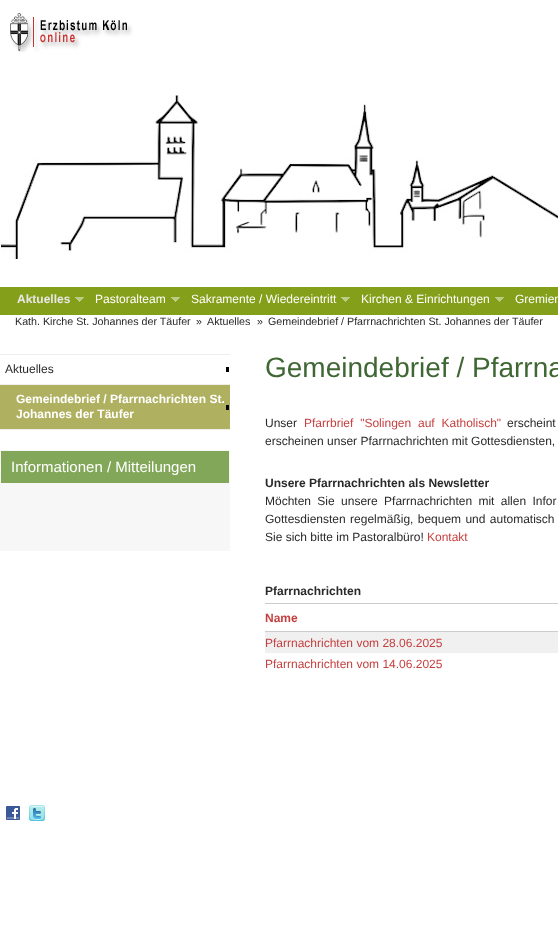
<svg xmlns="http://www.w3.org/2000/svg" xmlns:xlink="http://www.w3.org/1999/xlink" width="558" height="947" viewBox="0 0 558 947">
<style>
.cls-1{font:bold 12px Liberation Sans;fill:#e8e8e8}
.cls-2{font:12px Liberation Sans;fill:#ffffff}
.cls-3{font:10.7px Liberation Sans;fill:#292929}
.cls-4{font:12px Liberation Sans;fill:#292929}
.cls-5{font:bold 12px Liberation Sans;fill:#ffffff}
.cls-6{font:15px Liberation Sans;fill:#ffffff}
.cls-7{font:28px Liberation Sans;fill:#3f6733}
.cls-8{font:12px Liberation Sans;fill:#c53f3f}
.cls-9{font:bold 12px Liberation Sans;fill:#292929}
.cls-10{font:bold 12px Liberation Sans;fill:#c53f3f}
</style>
<rect width="100%" height="100%" fill="#ffffff"/>
<image xlink:href="image0.png" x="10" y="13" width="123" height="39"/>
<image xlink:href="image1.png" x="1" y="95" width="557" height="164"/>
<rect fill="#849f19" x="0" y="287" width="558" height="28"/>
<image xlink:href="image2.png" x="75" y="297" width="9" height="5"/>
<image xlink:href="image2.png" x="171" y="297" width="9" height="5"/>
<image xlink:href="image2.png" x="341" y="297" width="9" height="5"/>
<image xlink:href="image2.png" x="495" y="297" width="9" height="5"/>
<rect fill="#eeeeee" x="0" y="354" width="230" height="1"/>
<rect fill="#000000" x="226" y="367" width="3" height="5"/>
<rect fill="#eeeeee" x="0" y="384" width="230" height="1"/>
<rect fill="#b0b160" x="0" y="385" width="230" height="44"/>
<rect fill="#000000" x="226" y="405" width="3" height="5"/>
<rect fill="#eeeeee" x="0" y="429" width="230" height="1"/>
<rect fill="#f7f7f7" x="0" y="483" width="230" height="68"/>
<rect fill="#82a758" x="1" y="451" width="228" height="32"/>
<rect fill="#f7f7f7" x="0" y="450" width="230" height="1"/>
<rect fill="#f7f7f7" x="229" y="450" width="1" height="33"/>
<rect fill="#f7f7f7" x="0" y="450" width="1" height="33"/>
<rect fill="#cccccc" x="265" y="603" width="293" height="1"/>
<rect fill="#cccccc" x="265" y="631" width="293" height="1"/>
<rect fill="#f0f0f0" x="265" y="632" width="293" height="21"/>
<image xlink:href="image3.png" x="6" y="806" width="14" height="14"/>
<image xlink:href="image4.png" x="29" y="805" width="16" height="16"/>
<text class="cls-1" x="17" y="303">Aktuelles</text>
<text class="cls-2" x="95" y="303">Pastoralteam</text>
<text class="cls-2" x="191" y="303">Sakramente / Wiedereintritt</text>
<text class="cls-2" x="361" y="303">Kirchen &amp; Einrichtungen</text>
<text class="cls-2" x="515" y="303">Gremien</text>
<text class="cls-3" x="15" y="325">Kath. Kirche St. Johannes der Täufer</text>
<text class="cls-3" x="196" y="325">»</text>
<text class="cls-3" x="207" y="325">Aktuelles</text>
<text class="cls-3" x="257" y="325">»</text>
<text class="cls-3" x="268" y="325">Gemeindebrief / Pfarrnachrichten St. Johannes der Täufer</text>
<text class="cls-4" x="5" y="373">Aktuelles</text>
<text class="cls-5"><tspan x="16" y="403">Gemeindebrief / Pfarrnachrichten St.</tspan><tspan x="16" y="418">Johannes der Täufer</tspan></text>
<text class="cls-6" x="11" y="472">Informationen / Mitteilungen</text>
<text class="cls-7" x="265" y="377">Gemeindebrief / Pfarrna</text>
<text class="cls-4" x="265" y="427">Unser</text>
<text class="cls-8" x="304" y="427" word-spacing="3.5">Pfarrbrief "Solingen auf Katholisch"</text>
<text class="cls-4" x="507" y="427" word-spacing="3.5">erscheint</text>
<text class="cls-4" x="265" y="445">erscheinen unser Pfarrnachrichten mit Gottesdiensten,</text>
<text class="cls-9" x="265" y="487">Unsere Pfarrnachrichten als Newsletter</text>
<text class="cls-4"><tspan x="265" y="505" word-spacing="3">Möchten Sie unsere Pfarrnachrichten mit allen Infor</tspan><tspan x="265" y="523" word-spacing="1">Gottesdiensten regelmäßig, bequem und automatisch</tspan><tspan x="265" y="541">Sie sich bitte im Pastoralbüro!</tspan></text>
<text class="cls-8" x="427" y="541">Kontakt</text>
<text class="cls-9" x="265" y="595">Pfarrnachrichten</text>
<text class="cls-10" x="265" y="622">Name</text>
<text class="cls-8"><tspan x="265" y="647">Pfarrnachrichten vom 28.06.2025</tspan><tspan x="265" y="668">Pfarrnachrichten vom 14.06.2025</tspan></text>
</svg>
